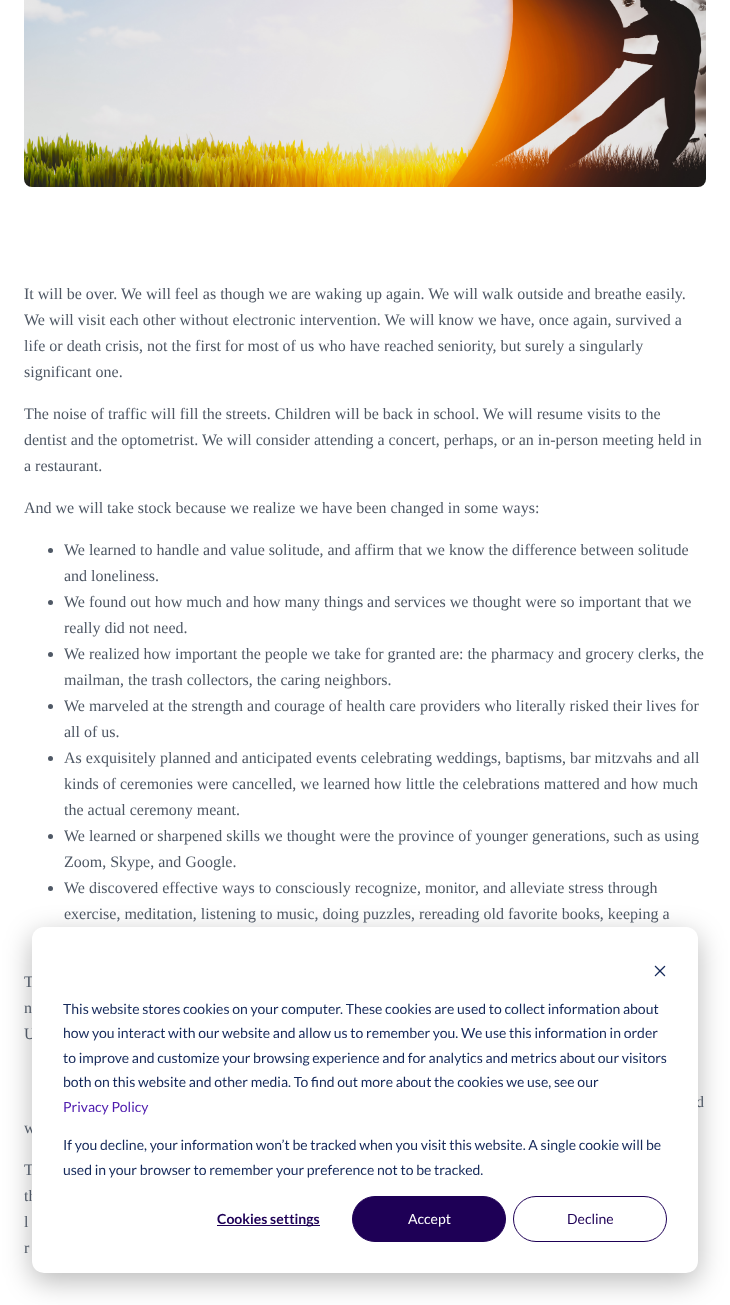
<svg xmlns="http://www.w3.org/2000/svg" xmlns:xlink="http://www.w3.org/1999/xlink" width="730" height="1305" viewBox="0 0 730 1305">
<style>
.cls-1{font:16px Liberation Serif;fill:#4f5865}
.cls-2{font:14px Lato;fill:#15295a}
.cls-3{font:14px Lato;fill:#4d1aad}
.cls-4{font:bold 14px Lato;fill:#1e0056}
.cls-5{font:14px Lato;fill:#ffffff}
.cls-6{font:14px Lato;fill:#1e0056}
</style>
<rect width="100%" height="100%" fill="#ffffff"/>
<image xlink:href="image0.png" x="24" y="0" width="682" height="187"/>
<circle fill="#4f5865" cx="50.5" cy="550.5" r="2.5"/>
<circle fill="#4f5865" cx="50.5" cy="602.5" r="2.5"/>
<circle fill="#4f5865" cx="50.5" cy="654.5" r="2.5"/>
<circle fill="#4f5865" cx="50.5" cy="706.5" r="2.5"/>
<circle fill="#4f5865" cx="50.5" cy="758.5" r="2.5"/>
<circle fill="#4f5865" cx="50.5" cy="836.5" r="2.5"/>
<circle fill="#4f5865" cx="50.5" cy="888.5" r="2.5"/>
<rect fill="#000000" fill-opacity="0.28" filter="blur(14px)" x="32" y="935" width="666" height="346" rx="12"/>
<text class="cls-1"><tspan x="24" y="299">It will be over. We will feel as though we are waking up again. We will walk outside and breathe easily.</tspan><tspan x="24" y="325">We will visit each other without electronic intervention. We will know we have, once again, survived a</tspan><tspan x="24" y="351">life or death crisis, not the first for most of us who have reached seniority, but surely a singularly</tspan><tspan x="24" y="377">significant one.</tspan></text>
<text class="cls-1"><tspan x="24" y="419">The noise of traffic will fill the streets. Children will be back in school. We will resume visits to the</tspan><tspan x="24" y="445">dentist and the optometrist. We will consider attending a concert, perhaps, or an in-person meeting held in</tspan><tspan x="24" y="471">a restaurant.</tspan></text>
<text class="cls-1" x="24" y="513">And we will take stock because we realize we have been changed in some ways:</text>
<text class="cls-1"><tspan x="64" y="555">We learned to handle and value solitude, and affirm that we know the difference between solitude</tspan><tspan x="64" y="581">and loneliness.</tspan><tspan x="64" y="607">We found out how much and how many things and services we thought were so important that we</tspan><tspan x="64" y="633">really did not need.</tspan><tspan x="64" y="659">We realized how important the people we take for granted are: the pharmacy and grocery clerks, the</tspan><tspan x="64" y="685">mailman, the trash collectors, the caring neighbors.</tspan><tspan x="64" y="711">We marveled at the strength and courage of health care providers who literally risked their lives for</tspan><tspan x="64" y="737">all of us.</tspan><tspan x="64" y="763">As exquisitely planned and anticipated events celebrating weddings, baptisms, bar mitzvahs and all</tspan><tspan x="64" y="789">kinds of ceremonies were cancelled, we learned how little the celebrations mattered and how much</tspan><tspan x="64" y="815">the actual ceremony meant.</tspan><tspan x="64" y="841">We learned or sharpened skills we thought were the province of younger generations, such as using</tspan><tspan x="64" y="867">Zoom, Skype, and Google.</tspan><tspan x="64" y="893">We discovered effective ways to consciously recognize, monitor, and alleviate stress through</tspan><tspan x="64" y="919">exercise, meditation, listening to music, doing puzzles, rereading old favorite books, keeping a</tspan></text>
<text class="cls-1"><tspan x="24" y="987">T</tspan><tspan x="24" y="1013">n</tspan><tspan x="24" y="1039">U</tspan></text>
<text class="cls-1" x="696" y="1107">d</text>
<text class="cls-1" x="24" y="1133">w</text>
<text class="cls-1"><tspan x="24" y="1175">T</tspan><tspan x="24" y="1201">th</tspan><tspan x="24" y="1227">l</tspan><tspan x="24" y="1253">r</tspan></text>
<rect fill="#ffffff" x="32" y="927" width="666" height="346" rx="12"/>
<image xlink:href="image1.png" x="654" y="965" width="12" height="12"/>
<text class="cls-2"><tspan x="63" y="1014">This website stores cookies on your computer. These cookies are used to collect information about</tspan><tspan x="63" y="1038">how you interact with our website and allow us to remember you. We use this information in order</tspan><tspan x="63" y="1063">to improve and customize your browsing experience and for analytics and metrics about our visitors</tspan><tspan x="63" y="1087">both on this website and other media. To find out more about the cookies we use, see our</tspan></text>
<text class="cls-3" x="63" y="1112">Privacy Policy</text>
<text class="cls-2"><tspan x="63" y="1150">If you decline, your information won’t be tracked when you visit this website. A single cookie will be</tspan><tspan x="63" y="1175">used in your browser to remember your preference not to be tracked.</tspan></text>
<rect fill="#1e0056" x="217" y="1225" width="103" height="1"/>
<text class="cls-4" x="217" y="1224">Cookies settings</text>
<rect fill="#1e0056" stroke="#1e0056" x="352.5" y="1196.5" width="153" height="45" rx="22.5"/>
<text class="cls-5" x="408" y="1224">Accept</text>
<rect fill="none" stroke="#1e0056" x="513.5" y="1196.5" width="153" height="45" rx="22.5"/>
<text class="cls-6" x="567" y="1224">Decline</text>
</svg>
